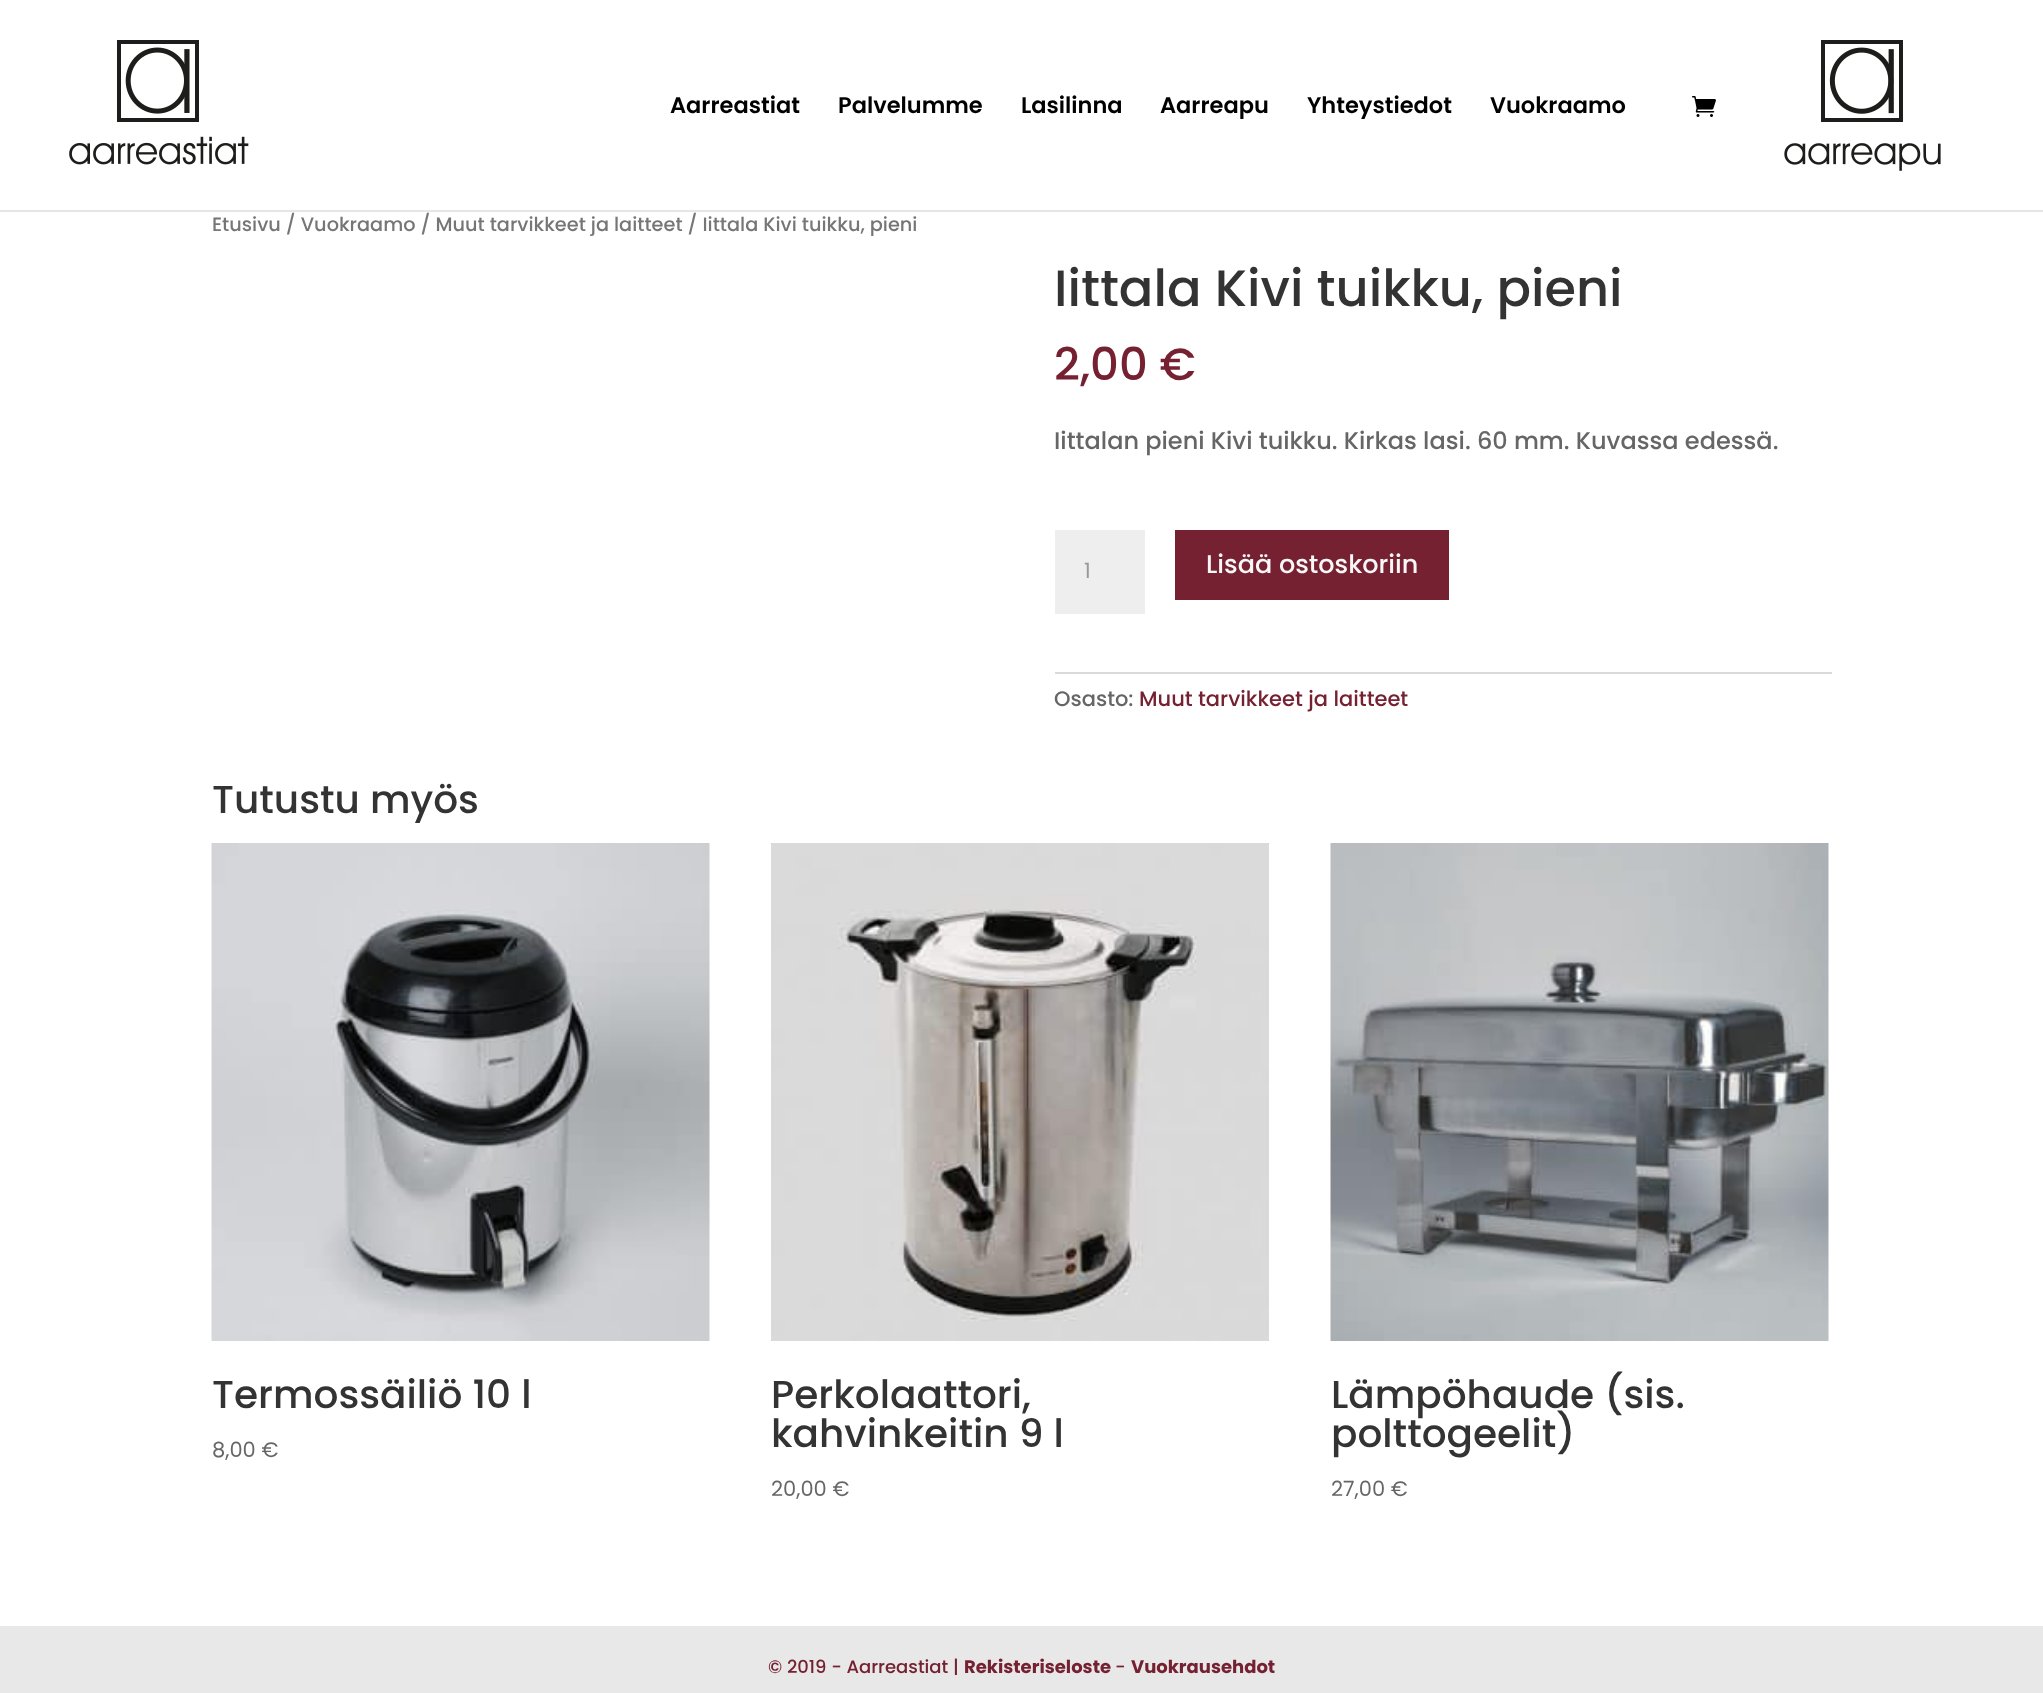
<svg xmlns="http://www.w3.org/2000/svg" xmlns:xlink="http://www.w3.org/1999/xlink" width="2043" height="1693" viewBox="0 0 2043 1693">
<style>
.cls-1{font:600 22.5px Poppins;fill:#000000}
.cls-2{font:500 19.3px Poppins;fill:#767676}
.cls-3{font:500 51px Poppins;fill:#333333}
.cls-4{font:500 45px Poppins;fill:#752131}
.cls-5{font:500 24px Poppins;fill:#666666}
.cls-6{font:21px Poppins;fill:#999999}
.cls-7{font:500 25.5px Poppins;fill:#f7f7f7}
.cls-8{font:500 21px Poppins;fill:#666666}
.cls-9{font:500 21px Poppins;fill:#752131}
.cls-10{font:500 39px Poppins;fill:#333333}
.cls-11{font:21px Poppins;fill:#666666}
.cls-12{font:500 18px Poppins;fill:#752131}
.cls-13{font:bold 18px Poppins;fill:#752131}
</style>
<rect width="100%" height="100%" fill="#ffffff"/>
<rect fill="#e6e6e6" x="0" y="210" width="2043" height="2"/>
<image xlink:href="image0.png" x="69" y="40" width="180" height="125"/>
<image xlink:href="image1.png" x="1784" y="40" width="157" height="131"/>
<image xlink:href="image2.png" x="1692" y="96" width="24" height="21"/>
<rect fill="#eeeeee" x="1055" y="530" width="90" height="84"/>
<rect fill="#752131" x="1175" y="530" width="274" height="70"/>
<rect fill="#dadada" x="1055" y="672" width="777" height="2"/>
<image xlink:href="image3.png" x="211" y="843" width="499" height="498"/>
<image xlink:href="image4.png" x="771" y="843" width="498" height="498"/>
<image xlink:href="image5.png" x="1330" y="843" width="499" height="498"/>
<rect fill="#e8e8e8" x="0" y="1626" width="2043" height="67"/>
<text class="cls-1" x="670" y="113">Aarreastiat</text>
<text class="cls-1" x="838" y="113">Palvelumme</text>
<text class="cls-1" x="1021" y="113">Lasilinna</text>
<text class="cls-1" x="1160" y="113">Aarreapu</text>
<text class="cls-1" x="1307" y="113">Yhteystiedot</text>
<text class="cls-1" x="1490" y="113">Vuokraamo</text>
<text class="cls-2" x="212" y="231">Etusivu / Vuokraamo / Muut tarvikkeet ja laitteet / Iittala Kivi tuikku, pieni</text>
<text class="cls-3" x="1054" y="306">Iittala Kivi tuikku, pieni</text>
<text class="cls-4" x="1054" y="380">2,00 €</text>
<text class="cls-5" x="1054" y="449">Iittalan pieni Kivi tuikku. Kirkas lasi. 60 mm. Kuvassa edessä.</text>
<text class="cls-6" x="1084" y="578">1</text>
<text class="cls-7" x="1206" y="573">Lisää ostoskoriin</text>
<text class="cls-8" x="1054" y="706">Osasto:</text>
<text class="cls-9" x="1139" y="706">Muut tarvikkeet ja laitteet</text>
<text class="cls-10" x="212" y="813">Tutustu myös</text>
<text class="cls-10" x="212" y="1408">Termossäiliö 10 l</text>
<text class="cls-11" x="212" y="1457">8,00 €</text>
<text class="cls-10"><tspan x="771" y="1408">Perkolaattori,</tspan><tspan x="771" y="1447">kahvinkeitin 9 l</tspan></text>
<text class="cls-11" x="771" y="1496">20,00 €</text>
<text class="cls-10"><tspan x="1331" y="1408">Lämpöhaude (sis.</tspan><tspan x="1331" y="1447">polttogeelit)</tspan></text>
<text class="cls-11" x="1331" y="1496">27,00 €</text>
<text class="cls-12" x="768" y="1673">© 2019 - Aarreastiat |</text>
<text class="cls-13" x="964" y="1673">Rekisteriseloste</text>
<text class="cls-12" x="1115" y="1673">-</text>
<text class="cls-13" x="1131" y="1673">Vuokrausehdot</text>
</svg>
